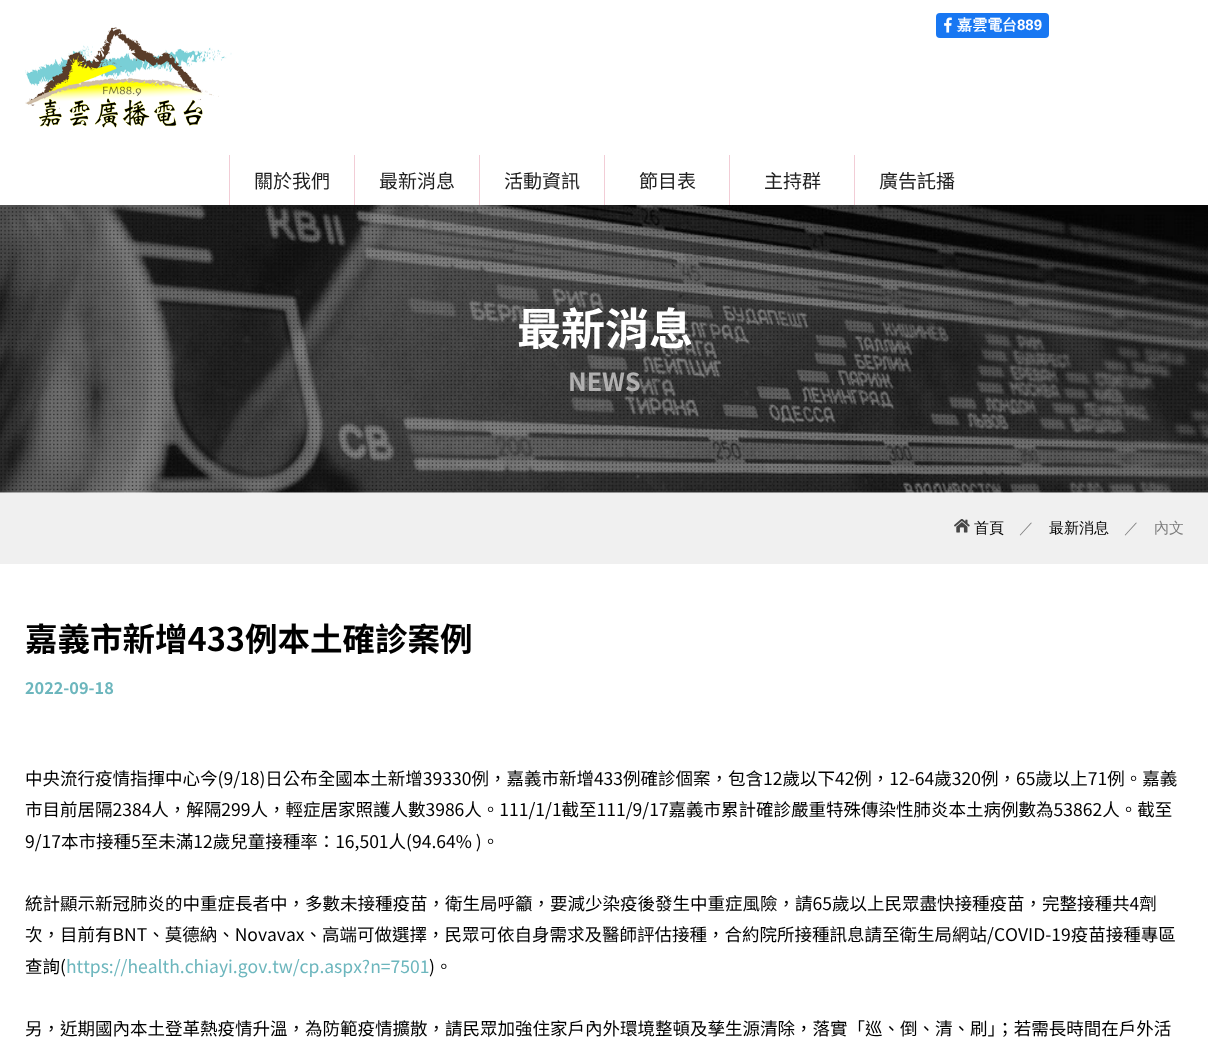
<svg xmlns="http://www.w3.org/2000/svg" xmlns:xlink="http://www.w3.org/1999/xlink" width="1208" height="1043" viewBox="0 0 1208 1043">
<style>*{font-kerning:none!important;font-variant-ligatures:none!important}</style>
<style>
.cls-1{font:bold 15px WenQuanYi Zen Hei;fill:#ffffff}
.cls-2{font:bold 15px Liberation Sans;fill:#ffffff}
.cls-3{font:19px Noto Sans TC;fill:#1e1e1e}
.cls-4{font:bold 44px Noto Sans TC;fill:#ffffff}
.cls-5{font:bold 25px Noto Sans TC;fill:#b1b0b0}
.cls-6{font:500 15px WenQuanYi Zen Hei;fill:#000000}
.cls-7{font:500 15px WenQuanYi Zen Hei;fill:#7d7d7d}
.cls-8{font:bold 32.5px Noto Sans TC;fill:#000000}
.cls-9{font:bold 16.25px Noto Sans TC;fill:#6cb6bd}
.cls-10{font:17.5px Noto Sans TC;fill:#000000}
.cls-11{font:17.5px Noto Sans TC;fill:#6cb6bd}
</style>
<rect width="100%" height="100%" fill="#ffffff"/>
<image xlink:href="image0.png" x="25" y="27" width="207" height="101"/>
<rect fill="#1877f2" x="936" y="13" width="113" height="25" rx="4"/>
<image xlink:href="image1.png" x="944" y="17" width="8" height="16"/>
<rect fill="#f2cdd6" x="229" y="155" width="1" height="50"/>
<rect fill="#f2cdd6" x="354" y="155" width="1" height="50"/>
<rect fill="#f2cdd6" x="479" y="155" width="1" height="50"/>
<rect fill="#f2cdd6" x="604" y="155" width="1" height="50"/>
<rect fill="#f2cdd6" x="729" y="155" width="1" height="50"/>
<rect fill="#f2cdd6" x="854" y="155" width="1" height="50"/>
<image xlink:href="image2.png" x="0" y="205" width="1208" height="288"/>
<rect fill="#f0f0f0" x="0" y="493" width="1208" height="71"/>
<image xlink:href="image3.png" x="954" y="519" width="16" height="14"/>
<text class="cls-1" x="957" y="30">嘉雲電台</text>
<text class="cls-2" x="1017" y="30">889</text>
<text class="cls-3" x="254" y="188">關於我們</text>
<text class="cls-3" x="379" y="188">最新消息</text>
<text class="cls-3" x="504" y="188">活動資訊</text>
<text class="cls-3" x="639" y="188">節目表</text>
<text class="cls-3" x="764" y="188">主持群</text>
<text class="cls-3" x="879" y="188">廣告託播</text>
<text class="cls-4" x="517" y="345">最新消息</text>
<text class="cls-5" x="568" y="391">NEWS</text>
<text class="cls-6" x="974" y="533">首頁</text>
<text class="cls-7" x="1019" y="533">／</text>
<text class="cls-6" x="1049" y="533">最新消息</text>
<text class="cls-7" x="1124" y="533">／　內文</text>
<text class="cls-8" x="25" y="651">嘉義市新增433例本土確診案例</text>
<text class="cls-9" x="25" y="694">2022-09-18</text>
<text class="cls-10"><tspan x="25" y="785">中央流行疫情指揮中心今(9/18)日公布全國本土新增39330例，嘉義市新增433例確診個案，包含12歲以下42例，12-64歲320例，65歲以上71例。嘉義</tspan><tspan x="25" y="816">市目前居隔2384人，解隔299人，輕症居家照護人數3986人。111/1/1截至111/9/17嘉義市累計確診嚴重特殊傳染性肺炎本土病例數為53862人。截至</tspan><tspan x="25" y="848">9/17本市接種5至未滿12歲兒童接種率：16,501人(94.64% )。</tspan></text>
<text class="cls-10"><tspan x="25" y="910">統計顯示新冠肺炎的中重症長者中，多數未接種疫苗，衛生局呼籲，要減少染疫後發生中重症風險，請65歲以上民眾盡快接種疫苗，完整接種共4劑</tspan><tspan x="25" y="941">次，目前有BNT、莫德納、Novavax、高端可做選擇，民眾可依自身需求及醫師評估接種，合約院所接種訊息請至衛生局網站/COVID-19疫苗接種專區</tspan><tspan x="25" y="973">查詢(</tspan></text>
<text class="cls-11" x="66" y="973">https://health.chiayi.gov.tw/cp.aspx?n=7501</text>
<text class="cls-10" x="429" y="973">)。</text>
<text class="cls-10" x="25" y="1035">另，近期國內本土登革熱疫情升溫，為防範疫情擴散，請民眾加強住家戶內外環境整頓及孳生源清除，落實「巡、倒、清、刷」；若需長時間在戶外活</text>
</svg>
